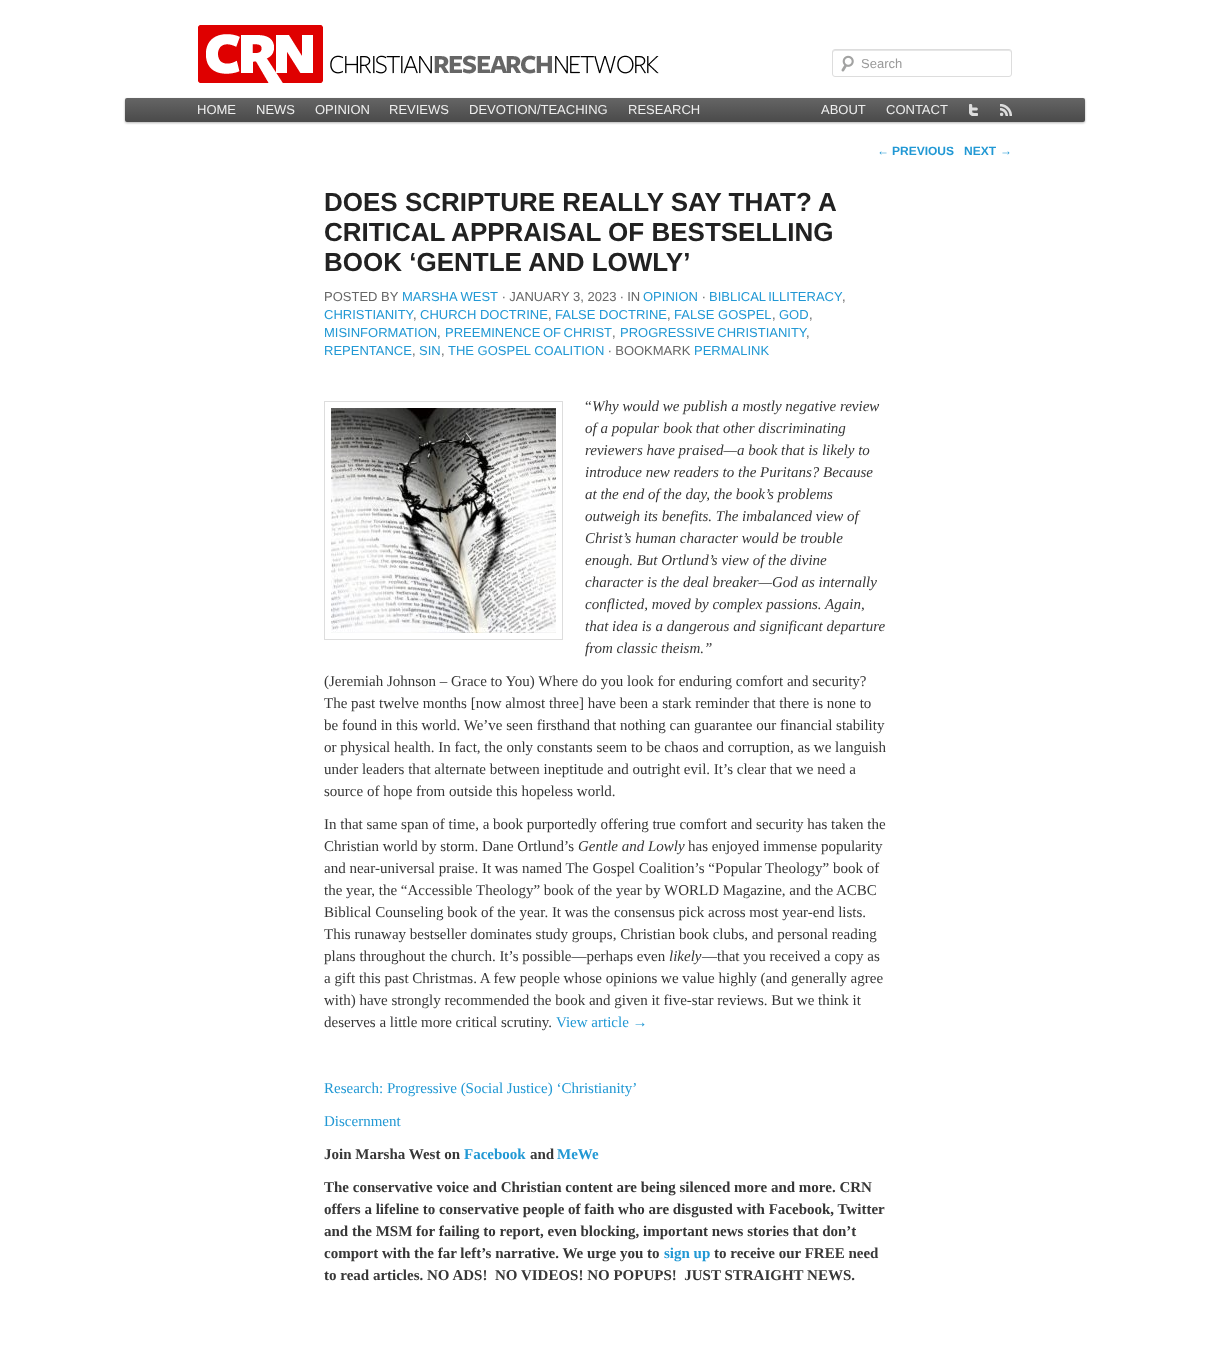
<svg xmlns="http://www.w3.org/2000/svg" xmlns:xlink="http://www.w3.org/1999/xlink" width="1209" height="1357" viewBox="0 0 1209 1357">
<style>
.cls-1{font:13px Liberation Sans;fill:#999999}
.cls-2{font:13px Liberation Sans;fill:#eeeeee}
.cls-3{font:12px Liberation Sans;fill:#2198d4}
.cls-4{font:bold 12px Liberation Sans;fill:#2198d4}
.cls-5{font:bold 26px Liberation Sans;fill:#222222}
.cls-6{font:13px Liberation Sans;fill:#666666}
.cls-7{font:13px Liberation Sans;fill:#2198d4}
.cls-8{font:15px Liberation Serif;fill:#373737}
.cls-9{font:italic 15px Liberation Serif;fill:#373737}
.cls-10{font:15px Liberation Serif;fill:#2198d4}
.cls-11{font:bold 15px Liberation Serif;fill:#373737}
.cls-12{font:bold 15px Liberation Serif;fill:#2198d4}
</style>
<defs>
<linearGradient id="g1" gradientUnits="userSpaceOnUse" x1="605" y1="98" x2="605" y2="122"><stop offset="0" stop-color="#656565"/><stop offset="1" stop-color="#4a4a4a"/></linearGradient>
</defs>
<rect width="100%" height="100%" fill="#ffffff"/>
<image xlink:href="image0.png" x="198" y="25" width="461" height="58"/>
<image xlink:href="image1.png" x="841" y="55" width="13" height="17"/>
<path fill="#e6e6e6" d="M835 51H1009C1010 51 1011 52 1011 53C1011 52 1011 50 1009 50H834C833 51 833 52 833 53C833 52 834 51 835 51Z"/>
<rect fill="none" stroke="#dddddd" x="832.5" y="49.5" width="179" height="27" rx="2.5"/>
<rect fill="#000000" fill-opacity="0.3" filter="blur(1px)" x="125" y="99" width="960" height="24" rx="2"/>
<rect fill="url(#g1)" x="125" y="98" width="960" height="24" rx="2"/>
<image xlink:href="image2.png" x="969" y="104" width="9" height="12"/>
<image xlink:href="image3.png" x="1000" y="104" width="12" height="12"/>
<rect fill="none" stroke="#dddddd" x="324.5" y="401.5" width="238" height="238"/>
<image xlink:href="image4.png" x="331" y="408" width="225" height="225"/>
<text class="cls-1" x="861" y="68">Search</text>
<text class="cls-2" x="197" y="114">HOME</text>
<text class="cls-2" x="256" y="114">NEWS</text>
<text class="cls-2" x="315" y="114">OPINION</text>
<text class="cls-2" x="389" y="114">REVIEWS</text>
<text class="cls-2" x="469" y="114">DEVOTION/TEACHING</text>
<text class="cls-2" x="628" y="114">RESEARCH</text>
<text class="cls-2" x="821" y="114">ABOUT</text>
<text class="cls-2" x="886" y="114">CONTACT</text>
<text class="cls-3" x="877" y="155">←</text>
<text class="cls-4" x="892" y="155">PREVIOUS</text>
<text class="cls-4" x="964" y="155">NEXT</text>
<text class="cls-3" x="1000" y="155">→</text>
<text class="cls-5"><tspan x="324" y="211">DOES SCRIPTURE REALLY SAY THAT? A</tspan><tspan x="324" y="241">CRITICAL APPRAISAL OF BESTSELLING</tspan><tspan x="324" y="271">BOOK ‘GENTLE AND LOWLY’</tspan></text>
<text class="cls-6" x="324" y="301">POSTED BY</text>
<text class="cls-7" x="402" y="301">MARSHA WEST</text>
<text class="cls-6" x="502" y="301">∙ JANUARY 3, 2023 ∙ IN</text>
<text class="cls-7" x="643" y="301">OPINION</text>
<text class="cls-6" x="702" y="301">∙</text>
<text class="cls-7" x="709" y="301" word-spacing="-1">BIBLICAL ILLITERACY</text>
<text class="cls-6" x="842" y="301">,</text>
<text class="cls-7" x="324" y="319">CHRISTIANITY</text>
<text class="cls-7" x="420" y="319">CHURCH DOCTRINE</text>
<text class="cls-7" x="555" y="319">FALSE DOCTRINE</text>
<text class="cls-7" x="674" y="319">FALSE GOSPEL</text>
<text class="cls-7" x="779" y="319">GOD</text>
<text class="cls-6" x="413" y="319">,</text>
<text class="cls-6" x="548" y="319">,</text>
<text class="cls-6" x="667" y="319">,</text>
<text class="cls-6" x="772" y="319">,</text>
<text class="cls-6" x="809" y="319">,</text>
<text class="cls-7" x="324" y="337">MISINFORMATION</text>
<text class="cls-6" x="437" y="337">,</text>
<text class="cls-7" x="445" y="337" word-spacing="-1">PREEMINENCE OF CHRIST</text>
<text class="cls-6" x="612" y="337">,</text>
<text class="cls-7" x="620" y="337" word-spacing="-1">PROGRESSIVE CHRISTIANITY</text>
<text class="cls-6" x="806" y="337">,</text>
<text class="cls-7" x="324" y="355">REPENTANCE</text>
<text class="cls-6" x="412" y="355">,</text>
<text class="cls-7" x="419" y="355">SIN</text>
<text class="cls-6" x="441" y="355">,</text>
<text class="cls-7" x="448" y="355">THE GOSPEL COALITION</text>
<text class="cls-6" x="608" y="355">∙ BOOKMARK</text>
<text class="cls-7" x="694" y="355">PERMALINK</text>
<text class="cls-8" x="585" y="411">“</text>
<text class="cls-9" x="592" y="411">Why would we publish a mostly negative review</text>
<text class="cls-9"><tspan x="585" y="433">of a popular book that other discriminating</tspan><tspan x="585" y="455">reviewers have praised—a book that is likely to</tspan><tspan x="585" y="477">introduce new readers to the Puritans? Because</tspan><tspan x="585" y="499">at the end of the day, the book’s problems</tspan><tspan x="585" y="521">outweigh its benefits. The imbalanced view of</tspan><tspan x="585" y="543">Christ’s human character would be trouble</tspan><tspan x="585" y="565">enough. But Ortlund’s view of the divine</tspan><tspan x="585" y="587">character is the deal breaker—God as internally</tspan><tspan x="585" y="609">conflicted, moved by complex passions. Again,</tspan><tspan x="585" y="631">that idea is a dangerous and significant departure</tspan><tspan x="585" y="653">from classic theism.”</tspan></text>
<text class="cls-8"><tspan x="324" y="686">(Jeremiah Johnson – Grace to You) Where do you look for enduring comfort and security?</tspan><tspan x="324" y="708">The past twelve months [now almost three] have been a stark reminder that there is none to</tspan><tspan x="324" y="730">be found in this world. We’ve seen firsthand that nothing can guarantee our financial stability</tspan><tspan x="324" y="752">or physical health. In fact, the only constants seem to be chaos and corruption, as we languish</tspan><tspan x="324" y="774">under leaders that alternate between ineptitude and outright evil. It’s clear that we need a</tspan><tspan x="324" y="796">source of hope from outside this hopeless world.</tspan></text>
<text class="cls-8"><tspan x="324" y="829">In that same span of time, a book purportedly offering true comfort and security has taken the</tspan><tspan x="324" y="851">Christian world by storm. Dane Ortlund’s</tspan></text>
<text class="cls-9" x="578" y="851">Gentle and Lowly</text>
<text class="cls-8" x="688" y="851">has enjoyed immense popularity</text>
<text class="cls-8"><tspan x="324" y="873">and near-universal praise. It was named The Gospel Coalition’s “Popular Theology” book of</tspan><tspan x="324" y="895">the year, the “Accessible Theology” book of the year by WORLD Magazine, and the ACBC</tspan><tspan x="324" y="917">Biblical Counseling book of the year. It was the consensus pick across most year-end lists.</tspan><tspan x="324" y="939">This runaway bestseller dominates study groups, Christian book clubs, and personal reading</tspan><tspan x="324" y="961">plans throughout the church. It’s possible—perhaps even</tspan></text>
<text class="cls-9" x="669" y="961">likely</text>
<text class="cls-8" x="702" y="961">—that you received a copy as</text>
<text class="cls-8"><tspan x="324" y="983">a gift this past Christmas. A few people whose opinions we value highly (and generally agree</tspan><tspan x="324" y="1005">with) have strongly recommended the book and given it five-star reviews. But we think it</tspan><tspan x="324" y="1027">deserves a little more critical scrutiny.</tspan></text>
<text class="cls-10" x="556" y="1027">View article →</text>
<text class="cls-10" x="324" y="1093">Research: Progressive (Social Justice) ‘Christianity’</text>
<text class="cls-10" x="324" y="1126">Discernment</text>
<text class="cls-11" x="324" y="1159">Join Marsha West on</text>
<text class="cls-12" x="464" y="1159">Facebook</text>
<text class="cls-11" x="530" y="1159">and</text>
<text class="cls-12" x="557" y="1159">MeWe</text>
<text class="cls-11"><tspan x="324" y="1192">The conservative voice and Christian content are being silenced more and more. CRN</tspan><tspan x="324" y="1214">offers a lifeline to conservative people of faith who are disgusted with Facebook, Twitter</tspan><tspan x="324" y="1236">and the MSM for failing to report, even blocking, important news stories that don’t</tspan><tspan x="324" y="1258">comport with the far left’s narrative. We urge you to</tspan></text>
<text class="cls-12" x="664" y="1258">sign up</text>
<text class="cls-11" x="714" y="1258">to receive our FREE need</text>
<text class="cls-11" xml:space="preserve" x="324" y="1280">to read articles. NO ADS!  NO VIDEOS! NO POPUPS!  JUST STRAIGHT NEWS.</text>
</svg>
